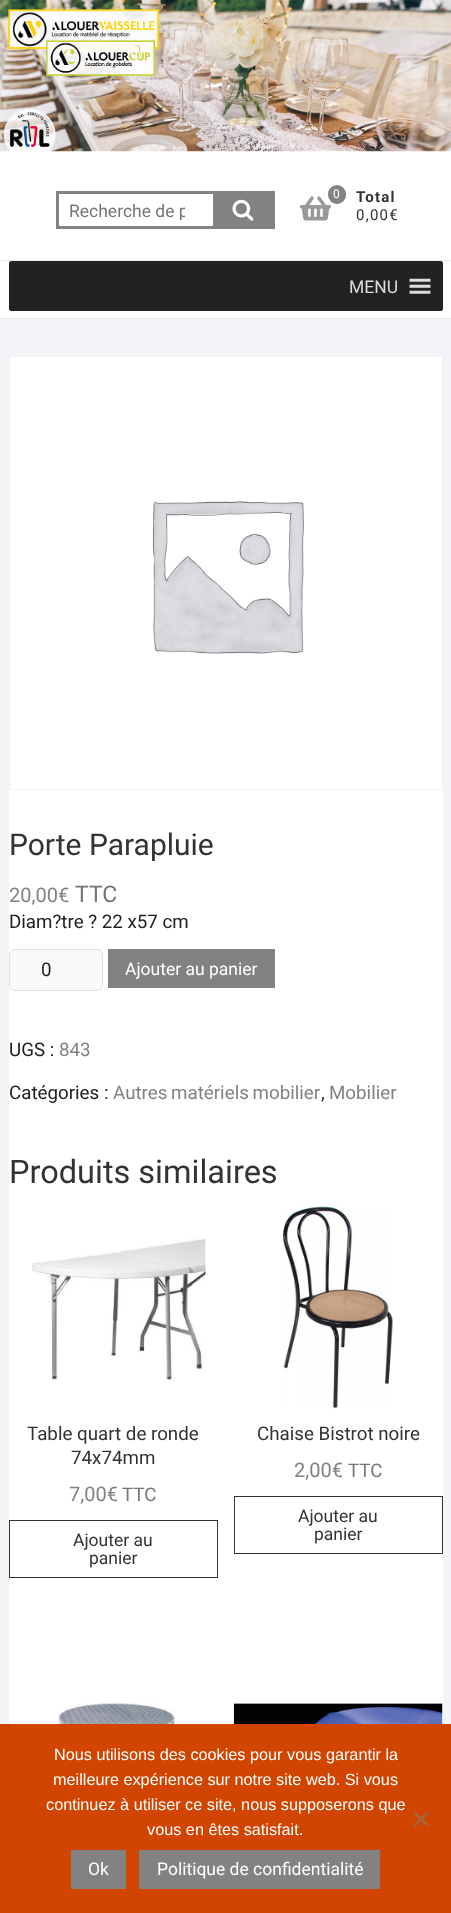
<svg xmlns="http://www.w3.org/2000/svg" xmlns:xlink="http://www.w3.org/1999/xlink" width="451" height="1913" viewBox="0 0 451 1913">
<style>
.cls-1{font:17.5px Roboto;fill:#757575}
.cls-2{font:12px Roboto;fill:#ffffff}
.cls-3{font:bold 15px Roboto;letter-spacing:1.25px;fill:#333333}
.cls-4{font:15px Roboto;letter-spacing:1.25px;fill:#333333}
.cls-5{font:17.5px Roboto;fill:#dddddd}
.cls-6{font:30px Roboto;fill:#333333}
.cls-7{font:20px Roboto;fill:#828282}
.cls-8{font:23px Roboto;fill:#757575}
.cls-9{font:18.75px Roboto;fill:#222222}
.cls-10{font:17.5px Roboto;fill:#ffffff}
.cls-11{font:18.75px Roboto;fill:#828282}
.cls-12{font:32.5px Roboto;fill:#333333}
.cls-13{font:18.75px Roboto;fill:#333333}
.cls-14{font:18.75px Roboto;fill:#757575}
.cls-15{font:17.5px Roboto;fill:#333333}
.cls-16{font:16.25px Liberation Sans;fill:#ffffff}
</style>
<defs>
<clipPath id="clip1"><rect x="69" y="200" width="116" height="20"/></clipPath>
</defs>
<rect width="100%" height="100%" fill="#f3f4f8"/>
<rect fill="#ffffff" x="0" y="0" width="451" height="318"/>
<image xlink:href="image0.png" x="0" y="0" width="451" height="152"/>
<rect fill="#828282" x="56" y="191" width="157" height="3"/>
<rect fill="#828282" x="56" y="226" width="157" height="3"/>
<rect fill="#828282" x="56" y="191" width="3" height="38"/>
<rect fill="#828282" x="213" y="191" width="62" height="38"/>
<image xlink:href="image1.png" x="232" y="199" width="22" height="22"/>
<image xlink:href="image2.png" x="300" y="196" width="31" height="25"/>
<rect fill="#828282" x="328" y="185" width="18" height="19" rx="9"/>
<rect fill="#ebebeb" x="0" y="260" width="451" height="1"/>
<rect fill="#ebebeb" x="0" y="318" width="451" height="1"/>
<rect fill="#222222" x="9" y="261" width="434" height="50" rx="2.5"/>
<image xlink:href="image3.png" x="409" y="278" width="22" height="16"/>
<rect fill="#ffffff" x="9" y="357" width="434" height="1367"/>
<rect fill="none" stroke="#f2f2f2" x="9.5" y="356.5" width="433" height="433"/>
<image xlink:href="image4.png" x="152" y="501" width="152" height="153"/>
<rect fill="#fafafa" stroke="#e1e1e1" x="9.5" y="949.5" width="93" height="41" rx="5.5"/>
<rect fill="#828282" x="108" y="949" width="167" height="39"/>
<image xlink:href="image5.png" x="32" y="1238" width="174" height="143"/>
<rect fill="none" stroke="#333333" x="9.5" y="1520.5" width="208" height="57"/>
<image xlink:href="image6.png" x="283" y="1205" width="110" height="204"/>
<rect fill="none" stroke="#333333" x="234.5" y="1496.5" width="208" height="57"/>
<image xlink:href="image7.png" x="58" y="1702" width="118" height="22"/>
<image xlink:href="image8.png" x="233" y="1703" width="210" height="21"/>
<rect fill="#d14500" x="0" y="1724" width="451" height="189"/>
<path fill="#a96340" d="M427 1811.5L429 1813.5L415.5 1826.5L413.5 1825Z"/>
<path fill="#a96340" d="M413.5 1813.5L415.5 1811.5L429 1825L427 1826.5Z"/>
<rect fill="#828282" x="71" y="1850" width="55" height="39"/>
<rect fill="#828282" x="139" y="1850" width="241" height="39"/>
<g clip-path="url(#clip1)">
<text class="cls-1" x="69" y="217">Recherche de p</text>
</g>
<text class="cls-2" x="333" y="198">0</text>
<text class="cls-3" x="356" y="202">Total</text>
<text class="cls-4" x="356" y="220">0,00€</text>
<text class="cls-5" x="349" y="293">MENU</text>
<text class="cls-6" x="9" y="855">Porte Parapluie</text>
<text class="cls-7" x="9" y="902">20,00€</text>
<text class="cls-8" x="75" y="902">TTC</text>
<text class="cls-9" x="9" y="928">Diam?tre ? 22 x57 cm</text>
<text class="cls-9" x="41" y="976">0</text>
<text class="cls-10" x="125" y="975">Ajouter au panier</text>
<text class="cls-9" x="9" y="1056">UGS :</text>
<text class="cls-11" x="59" y="1056">843</text>
<text class="cls-9" x="9" y="1099">Catégories :</text>
<text class="cls-11" x="113" y="1099" word-spacing="-1">Autres matériels mobilier</text>
<text class="cls-9" x="321" y="1099">,</text>
<text class="cls-11" x="329" y="1099">Mobilier</text>
<text class="cls-12" x="9" y="1183">Produits similaires</text>
<text class="cls-13" x="27" y="1440">Table quart de ronde</text>
<text class="cls-13" x="71" y="1464">74x74mm</text>
<text class="cls-7" x="69" y="1501">7,00€</text>
<text class="cls-14" x="122" y="1501">TTC</text>
<text class="cls-15" x="73" y="1546">Ajouter au</text>
<text class="cls-15" x="89" y="1564">panier</text>
<text class="cls-13" x="257" y="1440">Chaise Bistrot noire</text>
<text class="cls-7" x="294" y="1477">2,00€</text>
<text class="cls-14" x="348" y="1477">TTC</text>
<text class="cls-15" x="298" y="1522">Ajouter au</text>
<text class="cls-15" x="314" y="1540">panier</text>
<text class="cls-16" x="54" y="1760">Nous utilisons des cookies pour vous garantir la</text>
<text class="cls-16" x="53" y="1785">meilleure expérience sur notre site web. Si vous</text>
<text class="cls-16" x="46" y="1810">continuez à utiliser ce site, nous supposerons que</text>
<text class="cls-16" x="147" y="1835">vous en êtes satisfait.</text>
<text class="cls-10" x="88" y="1875">Ok</text>
<text class="cls-10" x="157" y="1875">Politique de confidentialité</text>
</svg>
